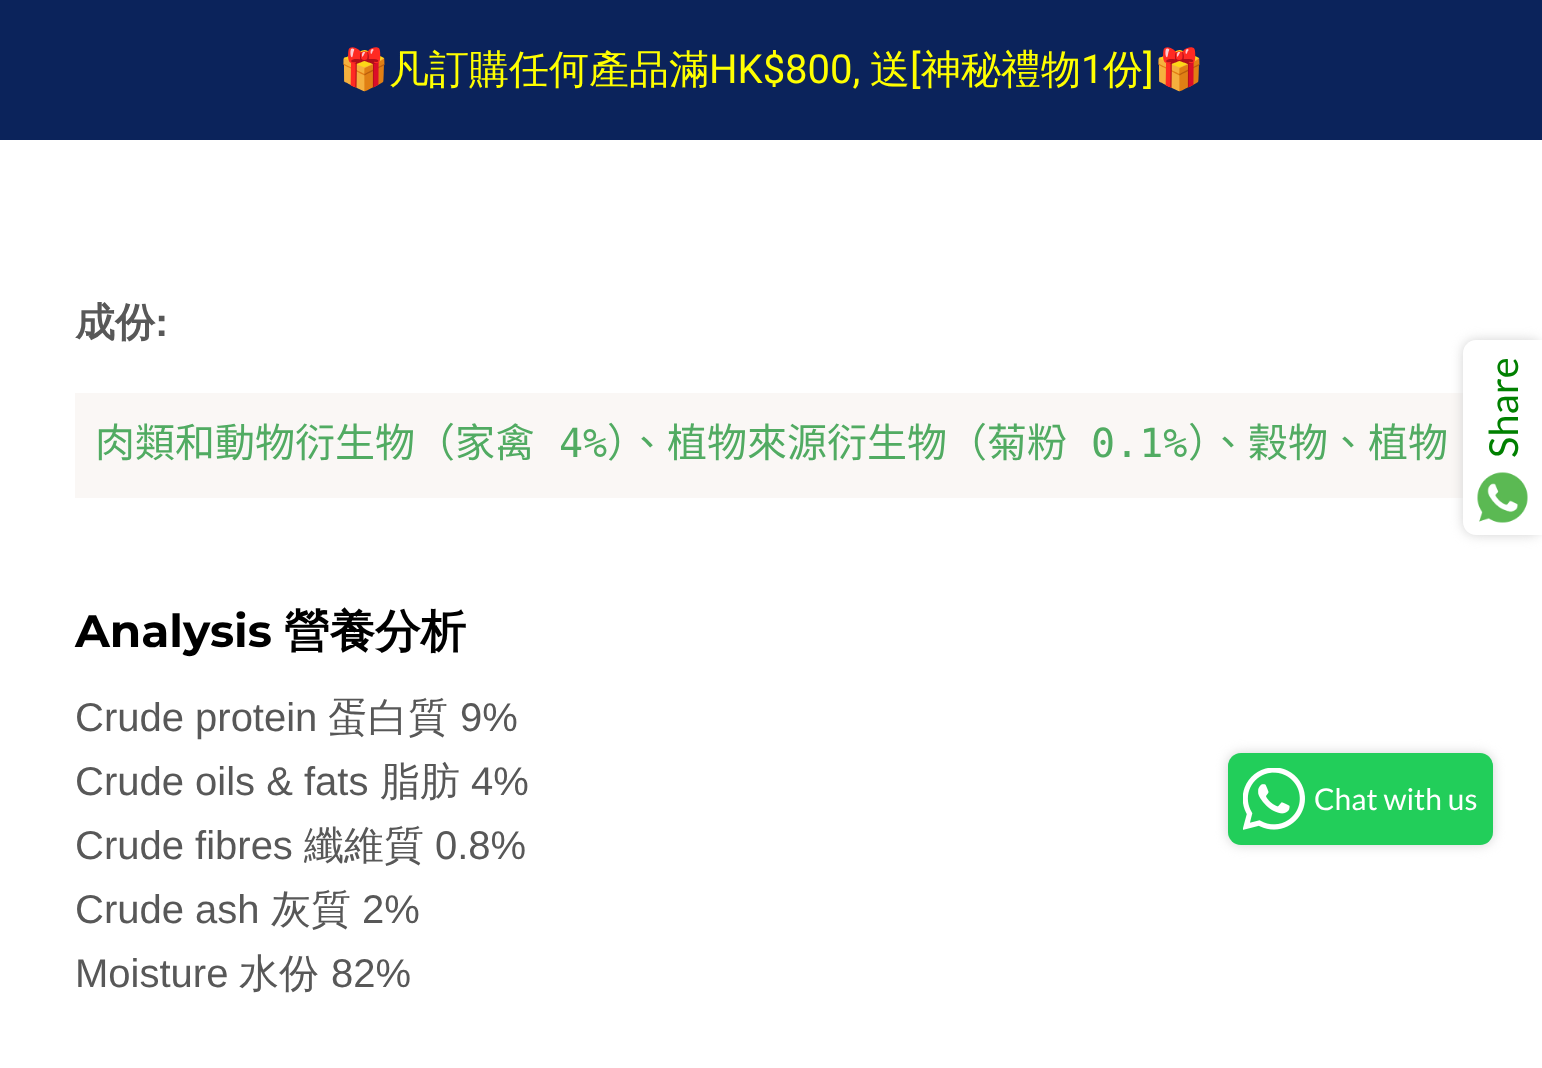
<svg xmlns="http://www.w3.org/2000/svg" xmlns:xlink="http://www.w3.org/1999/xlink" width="1542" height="1068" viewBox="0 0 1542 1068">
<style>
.cls-1{font:40px Noto Color Emoji;fill:#ffff00}
.cls-2{font:500 40px WenQuanYi Zen Hei;fill:#ffff00}
.cls-3{font:40px Roboto;fill:#ffff00}
.cls-4{font:bold 40px WenQuanYi Zen Hei;fill:#585858}
.cls-5{font:bold 40px Arimo;fill:#585858}
.cls-6{font:40px Noto Sans CJK TC;fill:#51ab62}
.cls-7{font:40px DejaVu Sans Mono;fill:#51ab62}
.cls-8{font:bold 45.5px Montserrat;fill:#000000}
.cls-9{font:bold 45.5px WenQuanYi Zen Hei;fill:#000000}
.cls-10{font:40px Arimo;fill:#585858}
.cls-11{font:500 40px WenQuanYi Zen Hei;fill:#585858}
.cls-12{font:40px Lato;fill:#008000}
.cls-13{font:30px Lato;fill:#ffffff}
</style>
<rect width="100%" height="100%" fill="#ffffff"/>
<rect fill="#0b235b" x="0" y="0" width="1542" height="140"/>
<rect fill="#faf7f5" x="75" y="393" width="1388" height="105"/>
<rect fill="#d3d3d3" filter="blur(6px)" x="1463" y="340" width="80" height="195" rx="13"/>
<path fill="#ffffff" d="M1476 340H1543V535H1476C1469 535 1463 529 1463 522V353C1463 346 1469 340 1476 340Z"/>
<image xlink:href="image0.png" x="1477" y="472" width="51" height="51"/>
<rect fill="#d3d3d3" filter="blur(6px)" x="1228" y="753" width="265" height="92" rx="13"/>
<rect fill="#22ce5a" x="1228" y="753" width="265" height="92" rx="13"/>
<image xlink:href="image1.png" x="1243" y="768" width="62" height="62"/>
<text class="cls-1" x="339" y="83">🎁</text>
<text class="cls-2" x="389" y="83">凡訂購任何產品滿</text>
<text class="cls-3" x="709" y="83">HK$800,</text>
<text class="cls-2" x="870" y="83">送</text>
<text class="cls-3" x="910" y="83">[</text>
<text class="cls-2" x="921" y="83">神秘禮物</text>
<text class="cls-3" x="1081" y="83">1</text>
<text class="cls-2" x="1103" y="83">份</text>
<text class="cls-3" x="1143" y="83">]</text>
<text class="cls-1" x="1154" y="83">🎁</text>
<text class="cls-4" x="75" y="336">成份</text>
<text class="cls-5" x="155" y="336">:</text>
<text class="cls-6" x="95" y="457">肉類和動物衍生物（家禽</text>
<text class="cls-7" x="559" y="457">4%</text>
<text class="cls-6" x="607" y="457">）、植物來源衍生物（菊粉</text>
<text class="cls-7" x="1091" y="457">0.1%</text>
<text class="cls-6" x="1188" y="457">）、穀物、植物</text>
<text class="cls-8" x="75" y="647">Analysis</text>
<text class="cls-9" x="284" y="647">營養分析</text>
<text class="cls-10" x="75" y="731">Crude protein</text>
<text class="cls-11" x="328" y="731">蛋白質</text>
<text class="cls-10" x="460" y="731">9%</text>
<text class="cls-10" x="75" y="795">Crude oils &amp; fats</text>
<text class="cls-11" x="380" y="795">脂肪</text>
<text class="cls-10" x="471" y="795">4%</text>
<text class="cls-10" x="75" y="859">Crude fibres</text>
<text class="cls-11" x="304" y="859">纖維質</text>
<text class="cls-10" x="435" y="859">0.8%</text>
<text class="cls-10" x="75" y="923">Crude ash</text>
<text class="cls-11" x="271" y="923">灰質</text>
<text class="cls-10" x="362" y="923">2%</text>
<text class="cls-10" x="75" y="987">Moisture</text>
<text class="cls-11" x="239" y="987">水份</text>
<text class="cls-10" x="331" y="987">82%</text>
<text class="cls-12" x="1518" y="458" transform="rotate(-90 1518 458)">Share</text>
<text class="cls-13" x="1314" y="810">Chat with us</text>
</svg>
